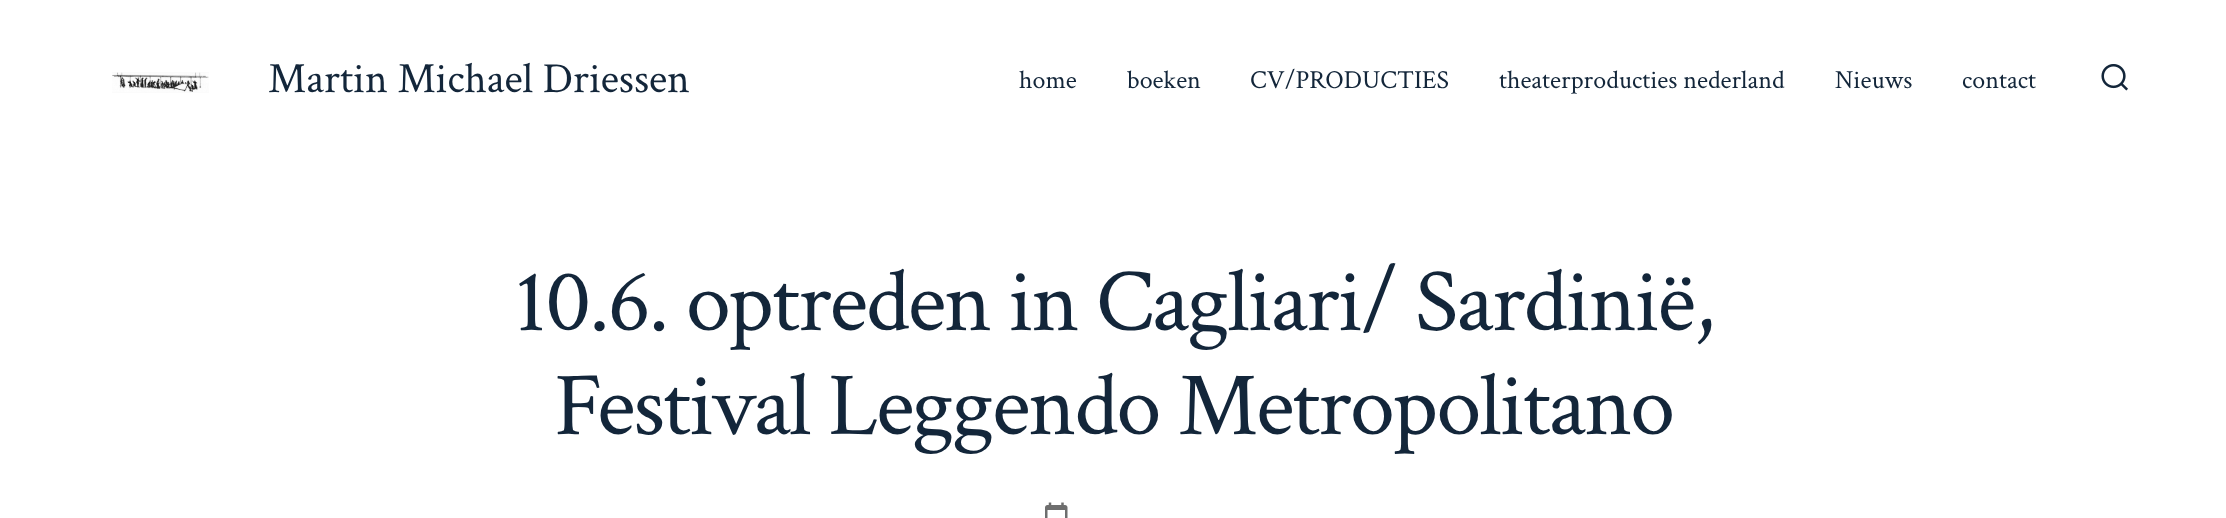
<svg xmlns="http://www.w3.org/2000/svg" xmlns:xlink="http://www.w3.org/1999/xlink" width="2226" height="518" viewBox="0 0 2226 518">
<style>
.cls-1{font:43px Crimson Text;fill:#13263a}
.cls-2{font:26px Crimson Text;fill:#13263a}
.cls-3{font:90.25px Crimson Text;letter-spacing:-1.8px;fill:#13263a}
</style>
<rect width="100%" height="100%" fill="#ffffff"/>
<image xlink:href="image0.png" x="112" y="72" width="97" height="21"/>
<image xlink:href="image1.png" x="2101" y="64" width="27" height="27"/>
<image xlink:href="image2.png" x="1045" y="502" width="23" height="16"/>
<text class="cls-1" x="268" y="92">Martin Michael Driessen</text>
<text class="cls-2" x="1019" y="88">home</text>
<text class="cls-2" x="1127" y="88">boeken</text>
<text class="cls-2" x="1250" y="88">CV/PRODUCTIES</text>
<text class="cls-2" x="1499" y="88">theaterproducties nederland</text>
<text class="cls-2" x="1835" y="88">Nieuws</text>
<text class="cls-2" x="1962" y="88">contact</text>
<text class="cls-3" x="514" y="330">10.6. optreden in Cagliari/ Sardinië,</text>
<text class="cls-3" x="554" y="434">Festival Leggendo Metropolitano</text>
</svg>
